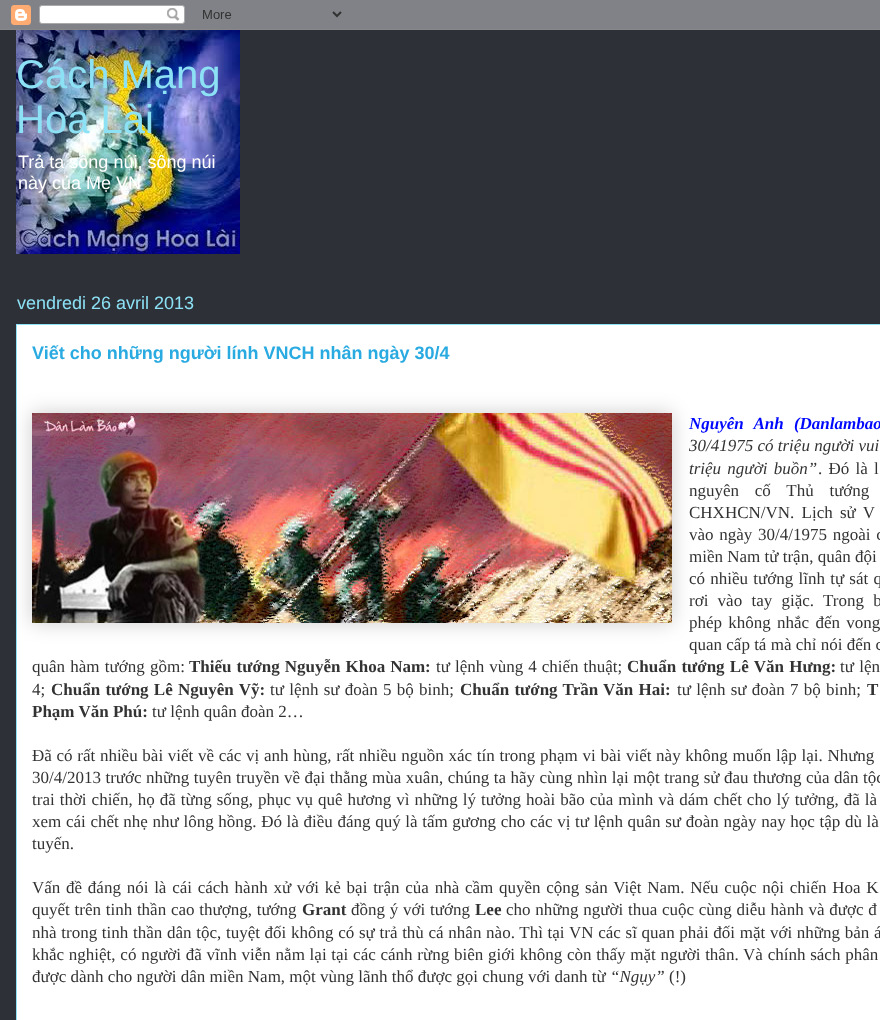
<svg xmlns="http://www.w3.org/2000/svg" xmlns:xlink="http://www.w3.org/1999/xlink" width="880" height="1020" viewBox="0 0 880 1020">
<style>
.cls-1{font:40px Liberation Sans;fill:#8ce1f5}
.cls-2{font:18px Liberation Sans;fill:#ffffff}
.cls-3{font:18px Liberation Sans;fill:#8ce1f5}
.cls-4{font:bold 18px Liberation Sans;fill:#29aae1}
.cls-5{font:italic bold 17px Liberation Serif;fill:#0009fe}
.cls-6{font:italic 17px Liberation Serif;fill:#333333}
.cls-7{font:17px Liberation Serif;fill:#333333}
.cls-8{font:bold 17px Liberation Serif;fill:#333333}
</style>
<rect width="100%" height="100%" fill="#2d3037"/>
<image xlink:href="image0.png" x="0" y="0" width="880" height="30"/>
<image xlink:href="image1.png" x="16" y="30" width="224" height="224"/>
<rect fill="#ffffff" stroke="#8ce1f5" x="16.5" y="324.5" width="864" height="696"/>
<rect fill="#000000" fill-opacity="0.2" filter="blur(10px)" x="32" y="413" width="640" height="210"/>
<image xlink:href="image2.png" x="32" y="413" width="640" height="210"/>
<text class="cls-1"><tspan x="16" y="88">Cách Mạng</tspan><tspan x="16" y="133">Hoa Lài</tspan></text>
<text class="cls-2"><tspan x="18" y="168">Trả ta sông núi, sông núi</tspan><tspan x="18" y="189">này của Mẹ VN</tspan></text>
<text class="cls-3" x="17" y="309">vendredi 26 avril 2013</text>
<text class="cls-4" x="32" y="359">Viết cho những người lính VNCH nhân ngày 30/4</text>
<text class="cls-5" x="689" y="429" word-spacing="6">Nguyên Anh (Danlambao</text>
<text class="cls-6"><tspan x="689" y="451">30/41975 có triệu người vui</tspan><tspan x="689" y="474" word-spacing="2">triệu người buồn”</tspan></text>
<text class="cls-7" x="818" y="474" word-spacing="2">. Đó là l</text>
<text class="cls-7"><tspan x="689" y="496" word-spacing="11.5">nguyên cố Thủ tướng</tspan><tspan x="689" y="518" word-spacing="3">CHXHCN/VN. Lịch sử V</tspan><tspan x="689" y="540" word-spacing="1.5">vào ngày 30/4/1975 ngoài c</tspan><tspan x="689" y="562">miền Nam tử trận, quân đội</tspan><tspan x="689" y="584" word-spacing="1">có nhiều tướng lĩnh tự sát q</tspan><tspan x="689" y="606" word-spacing="5">rơi vào tay giặc. Trong b</tspan><tspan x="689" y="628" word-spacing="2">phép không nhắc đến vong</tspan><tspan x="689" y="650">quan cấp tá mà chỉ nói đến c</tspan></text>
<text class="cls-7" x="32" y="672" word-spacing="1">quân hàm tướng gồm:</text>
<text class="cls-8" x="189" y="672" word-spacing="0.75">Thiếu tướng Nguyễn Khoa Nam:</text>
<text class="cls-7" x="436" y="672" word-spacing="0.75">tư lệnh vùng 4 chiến thuật;</text>
<text class="cls-8" x="627" y="672" word-spacing="1">Chuẩn tướng Lê Văn Hưng:</text>
<text class="cls-7" x="840" y="672" word-spacing="1">tư lện</text>
<text class="cls-7" x="32" y="695">4;</text>
<text class="cls-8" x="51" y="695" word-spacing="1">Chuẩn tướng Lê Nguyên Vỹ:</text>
<text class="cls-7" x="270" y="695" word-spacing="1">tư lệnh sư đoàn 5 bộ binh;</text>
<text class="cls-8" x="460" y="695" word-spacing="1">Chuẩn tướng Trần Văn Hai:</text>
<text class="cls-7" x="677" y="695" word-spacing="1">tư lệnh sư đoàn 7 bộ binh;</text>
<text class="cls-8" x="867" y="695" word-spacing="1">T</text>
<text class="cls-8" x="32" y="717">Phạm Văn Phú:</text>
<text class="cls-7" x="152" y="717">tư lệnh quân đoàn 2…</text>
<text class="cls-7"><tspan x="32" y="761" word-spacing="0.45">Đã có rất nhiều bài viết về các vị anh hùng, rất nhiều nguồn xác tín trong phạm vi bài viết này không muốn lập lại. Nhưng</tspan><tspan x="32" y="783" word-spacing="0.25">30/4/2013 trước những tuyên truyền về đại thằng mùa xuân, chúng ta hãy cùng nhìn lại một trang sử đau thương của dân tộc</tspan><tspan x="32" y="805" word-spacing="0.75">trai thời chiến, họ đã từng sống, phục vụ quê hương vì những lý tưởng hoài bão của mình và dám chết cho lý tưởng, đã là</tspan><tspan x="32" y="827" word-spacing="0.4">xem cái chết nhẹ như lông hồng. Đó là điều đáng quý là tấm gương cho các vị tư lệnh quân sư đoàn ngày nay học tập dù là</tspan><tspan x="32" y="849">tuyến.</tspan></text>
<text class="cls-7"><tspan x="32" y="893" word-spacing="1.5">Vấn đề đáng nói là cái cách hành xử với kẻ bại trận của nhà cầm quyền cộng sản Việt Nam. Nếu cuộc nội chiến Hoa K</tspan><tspan x="32" y="915" word-spacing="0.5">quyết trên tinh thần cao thượng, tướng</tspan></text>
<text class="cls-8" x="302" y="915">Grant</text>
<text class="cls-7" x="351" y="915" word-spacing="0.5">đồng ý với tướng</text>
<text class="cls-8" x="475" y="915">Lee</text>
<text class="cls-7" x="506" y="915" word-spacing="0.5">cho những người thua cuộc cùng diễu hành và được đ</text>
<text class="cls-7"><tspan x="32" y="938" word-spacing="0.45">nhà trong tinh thần dân tộc, tuyệt đối không có sự trả thù cá nhân nào. Thì tại VN các sĩ quan phải đối mặt với những bản á</tspan><tspan x="32" y="960" word-spacing="0.5">khắc nghiệt, có người đã vĩnh viễn nằm lại tại các cánh rừng biên giới không còn thấy mặt người thân. Và chính sách phân</tspan><tspan x="32" y="982">được dành cho người dân miền Nam, một vùng lãnh thổ được gọi chung với danh từ</tspan></text>
<text class="cls-6" x="610" y="982">“Ngụy”</text>
<text class="cls-7" x="669" y="982">(!)</text>
</svg>
